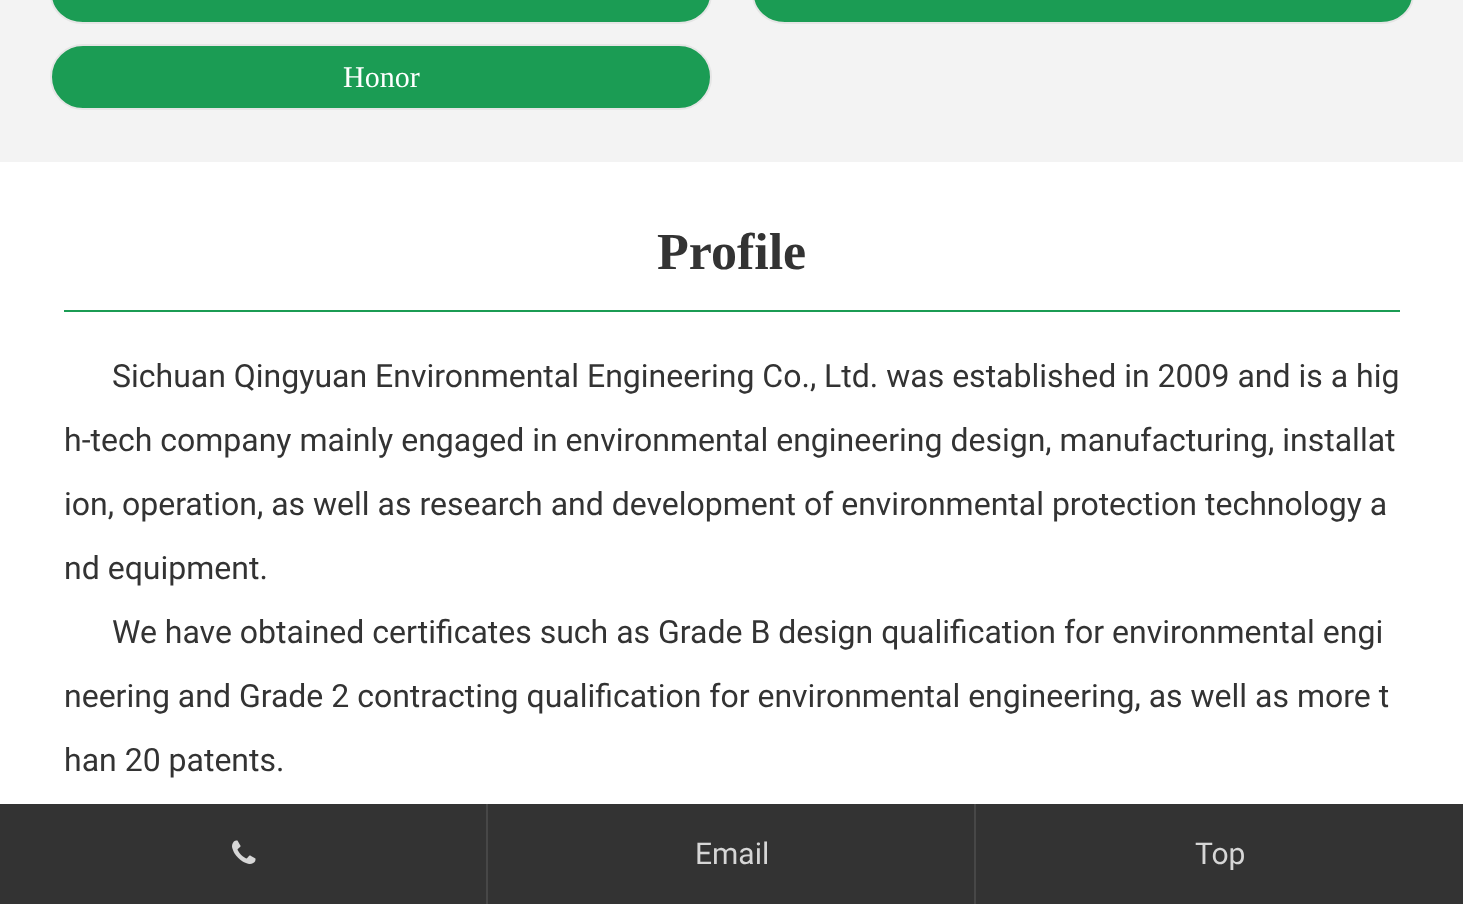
<svg xmlns="http://www.w3.org/2000/svg" xmlns:xlink="http://www.w3.org/1999/xlink" width="1463" height="904" viewBox="0 0 1463 904">
<style>
.cls-1{font:30px Liberation Serif;fill:#ffffff}
.cls-2{font:bold 52px Liberation Serif;fill:#333333}
.cls-3{font:32px Roboto;fill:#333333}
.cls-4{font:30px Roboto;fill:#d6d6d6}
</style>
<rect width="100%" height="100%" fill="#f3f3f3"/>
<rect fill="#1b9c54" stroke="#e5e5e5" stroke-width="2" x="51" y="-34" width="660" height="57" rx="32"/>
<rect fill="#1b9c54" stroke="#e5e5e5" stroke-width="2" x="753" y="-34" width="660" height="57" rx="32"/>
<rect fill="#1b9c54" stroke="#e5e5e5" stroke-width="2" x="51" y="45" width="660" height="64" rx="32"/>
<rect fill="#ffffff" x="0" y="162" width="1463" height="642"/>
<rect fill="#1b9c54" x="64" y="310" width="1336" height="2"/>
<rect fill="#333333" x="0" y="804" width="1463" height="100"/>
<rect fill="#474747" x="486" y="804" width="2" height="100"/>
<image xlink:href="image0.png" x="232" y="840" width="24" height="24"/>
<rect fill="#474747" x="974" y="804" width="2" height="100"/>
<text class="cls-1" x="343" y="87">Honor</text>
<text class="cls-2" x="657" y="269">Profile</text>
<text class="cls-3" x="112" y="387">Sichuan Qingyuan Environmental Engineering Co., Ltd. was established in 2009 and is a hig</text>
<text class="cls-3" x="64" y="451">h-tech company mainly engaged in environmental engineering design, manufacturing, installat</text>
<text class="cls-3" x="64" y="515">ion, operation, as well as research and development of environmental protection technology a</text>
<text class="cls-3" x="64" y="579">nd equipment.</text>
<text class="cls-3" x="112" y="643">We have obtained certificates such as Grade B design qualification for environmental engi</text>
<text class="cls-3" x="64" y="707">neering and Grade 2 contracting qualification for environmental engineering, as well as more t</text>
<text class="cls-3" x="64" y="771">han 20 patents.</text>
<text class="cls-4" x="695" y="864">Email</text>
<text class="cls-4" x="1195" y="864">Top</text>
</svg>
